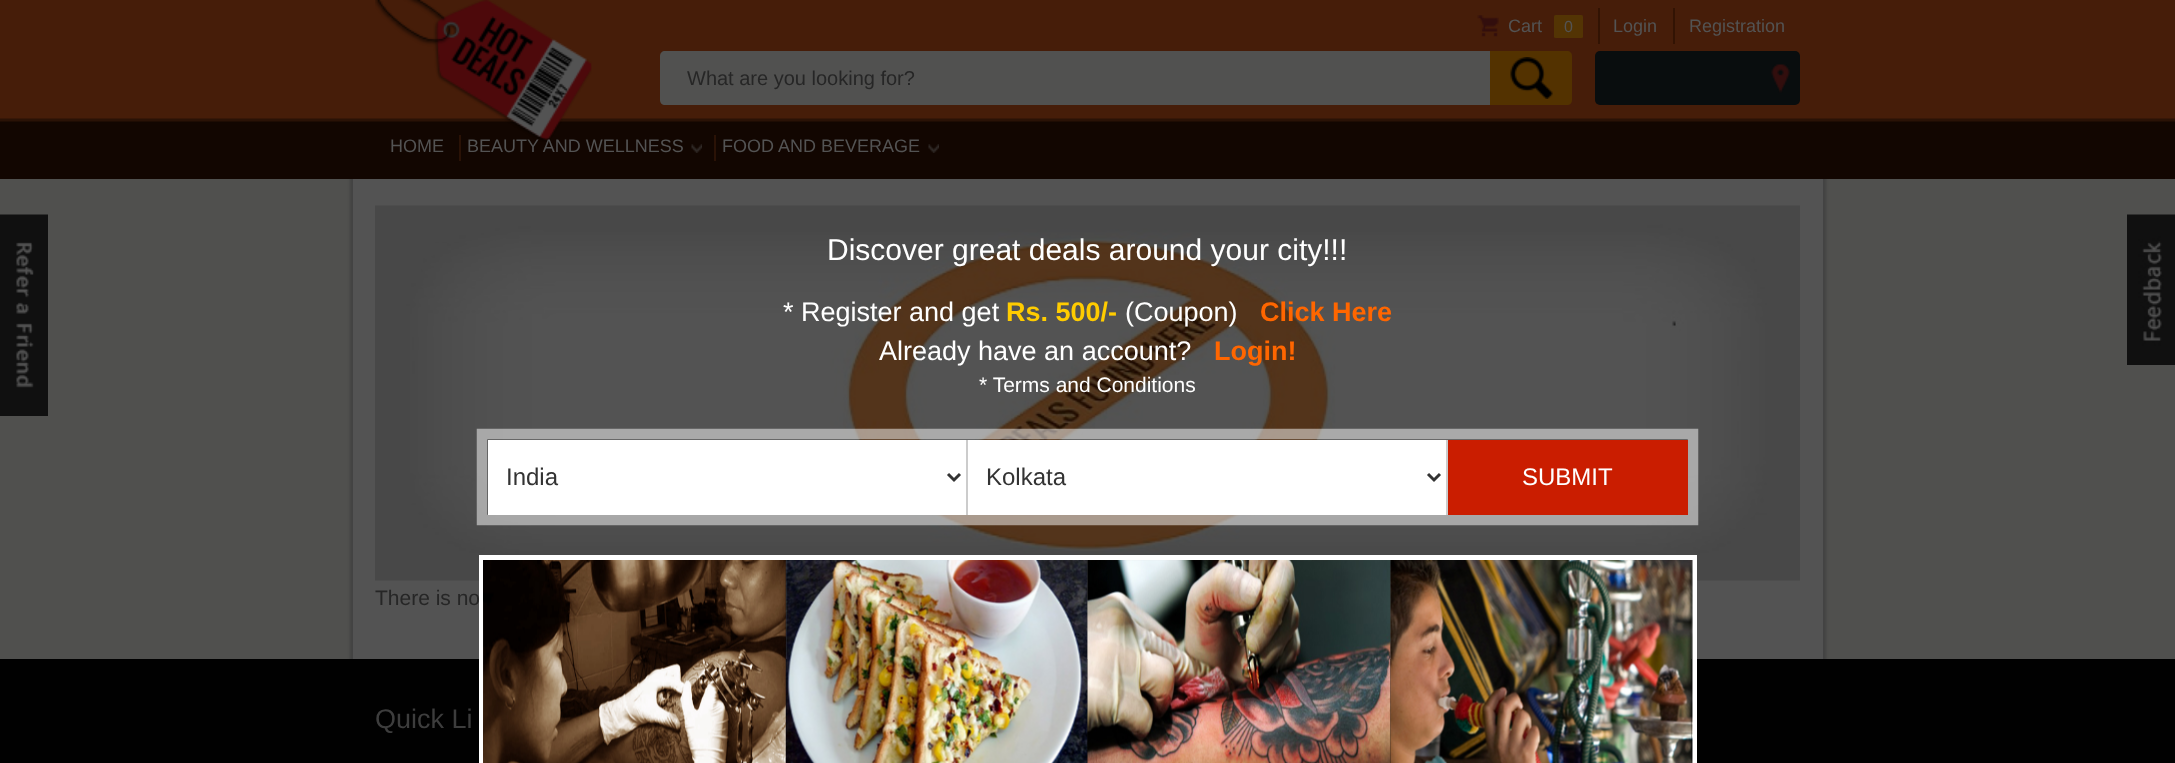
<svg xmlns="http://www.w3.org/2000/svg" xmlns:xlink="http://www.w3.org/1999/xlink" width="2175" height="763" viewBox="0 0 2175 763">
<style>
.cls-1{font:18px Liberation Sans;fill:#535353}
.cls-2{font:16px Liberation Sans;fill:#535353}
.cls-3{font:20px Liberation Sans;fill:#262626}
.cls-4{font:30px Liberation Sans;fill:#ffffff}
.cls-5{font:27px Liberation Sans;fill:#ffffff}
.cls-6{font:bold 27px Liberation Sans;fill:#ffcc00}
.cls-7{font:bold 27px Liberation Sans;fill:#ff6600}
.cls-8{font:21px Liberation Sans;fill:#ffffff}
.cls-9{font:24px Liberation Sans;fill:#333333}
.cls-10{font:24px Liberation Sans;fill:#ffffff}
.cls-11{font:21px Liberation Sans;fill:#262626}
.cls-12{font:27px Liberation Sans;fill:#3d3d3d}
</style>
<rect width="100%" height="100%" fill="#50504e"/>
<rect fill="#424242" filter="blur(1.5px)" x="350" y="176" width="1476" height="486"/>
<rect fill="#120601" x="0" y="122" width="2175" height="57"/>
<image xlink:href="image0.png" x="0" y="0" width="2175" height="122"/>
<image xlink:href="image1.png" x="375" y="0" width="217" height="142"/>
<image xlink:href="image2.png" x="1477" y="15" width="22" height="22"/>
<rect fill="#533404" x="1554" y="15" width="29" height="23" rx="1.5"/>
<rect fill="#321303" x="1598" y="8" width="2" height="36"/>
<rect fill="#321303" x="1673" y="8" width="2" height="36"/>
<path fill="#515150" d="M665 51H1490V105H665C662 105 660 103 660 100V56C660 53 662 51 665 51Z"/>
<path fill="#533200" d="M1490 51H1567C1570 51 1572 53 1572 56V100C1572 103 1570 105 1567 105H1490Z"/>
<image xlink:href="image3.png" x="1510" y="57" width="43" height="42"/>
<rect fill="#090d0e" x="1595" y="51" width="205" height="54" rx="5"/>
<image xlink:href="image4.png" x="1771" y="64" width="19" height="29"/>
<rect fill="#2a1206" x="459" y="135" width="2" height="26"/>
<image xlink:href="image5.png" x="691" y="144" width="11" height="9"/>
<rect fill="#2a1206" x="714" y="135" width="2" height="26"/>
<image xlink:href="image6.png" x="928" y="144" width="11" height="9"/>
<image xlink:href="image7.png" x="0" y="214" width="48" height="202"/>
<rect fill="#535353" x="353" y="179" width="1470" height="480"/>
<image xlink:href="image13.png" x="375" y="205" width="1425" height="376"/>
<path fill="none" stroke="#ffffff" stroke-opacity="0.5" stroke-width="10.5" d="M482 434H1693V520H482Z"/>
<rect fill="#ffffff" x="488" y="440" width="478" height="75"/>
<rect fill="#cccccc" x="966" y="440" width="2" height="75"/>
<path fill="none" stroke="#333333" stroke-width="3" d="M948 474L954 480L960 474"/>
<rect fill="#ffffff" x="968" y="440" width="478" height="75"/>
<rect fill="#cccccc" x="1446" y="440" width="2" height="75"/>
<path fill="none" stroke="#333333" stroke-width="3" d="M1428 474L1434 480L1440 474"/>
<rect fill="#ca1d00" x="1448" y="440" width="240" height="75"/>
<image xlink:href="image12.png" x="2127" y="214" width="48" height="151"/>
<rect fill="#010101" x="0" y="659" width="2175" height="104"/>
<text class="cls-1" x="1508" y="32">Cart</text>
<text class="cls-2" x="1564" y="32">0</text>
<text class="cls-1" x="1613" y="32">Login</text>
<text class="cls-1" x="1689" y="32">Registration</text>
<text class="cls-3" x="687" y="85">What are you looking for?</text>
<text class="cls-1" x="390" y="152">HOME</text>
<text class="cls-1" x="467" y="152">BEAUTY AND WELLNESS</text>
<text class="cls-1" x="722" y="152">FOOD AND BEVERAGE</text>
<text class="cls-4" x="827" y="260">Discover great deals around your city!!!</text>
<text class="cls-5" x="783" y="321">* Register and get</text>
<text class="cls-6" x="1006" y="321">Rs. 500/-</text>
<text class="cls-5" x="1125" y="321">(Coupon)</text>
<text class="cls-7" x="1260" y="321">Click Here</text>
<text class="cls-5" x="879" y="360">Already have an account?</text>
<text class="cls-7" x="1214" y="360">Login!</text>
<text class="cls-8" x="979" y="392">* Terms and Conditions</text>
<text class="cls-9" x="506" y="485">India</text>
<text class="cls-9" x="986" y="485">Kolkata</text>
<text class="cls-10" x="1522" y="485">SUBMIT</text>
<text class="cls-11" x="375" y="605">There is no</text>
<rect fill="none" stroke="#ffffff" stroke-width="5" x="481.5" y="557.5" width="1213" height="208"/>
<image xlink:href="image8.png" x="483" y="560" width="303" height="203"/>
<image xlink:href="image9.png" x="785" y="560" width="303" height="203"/>
<image xlink:href="image10.png" x="1087" y="560" width="304" height="203"/>
<image xlink:href="image11.png" x="1390" y="560" width="303" height="203"/>
<text class="cls-12" x="375" y="728">Quick Li</text>
</svg>
